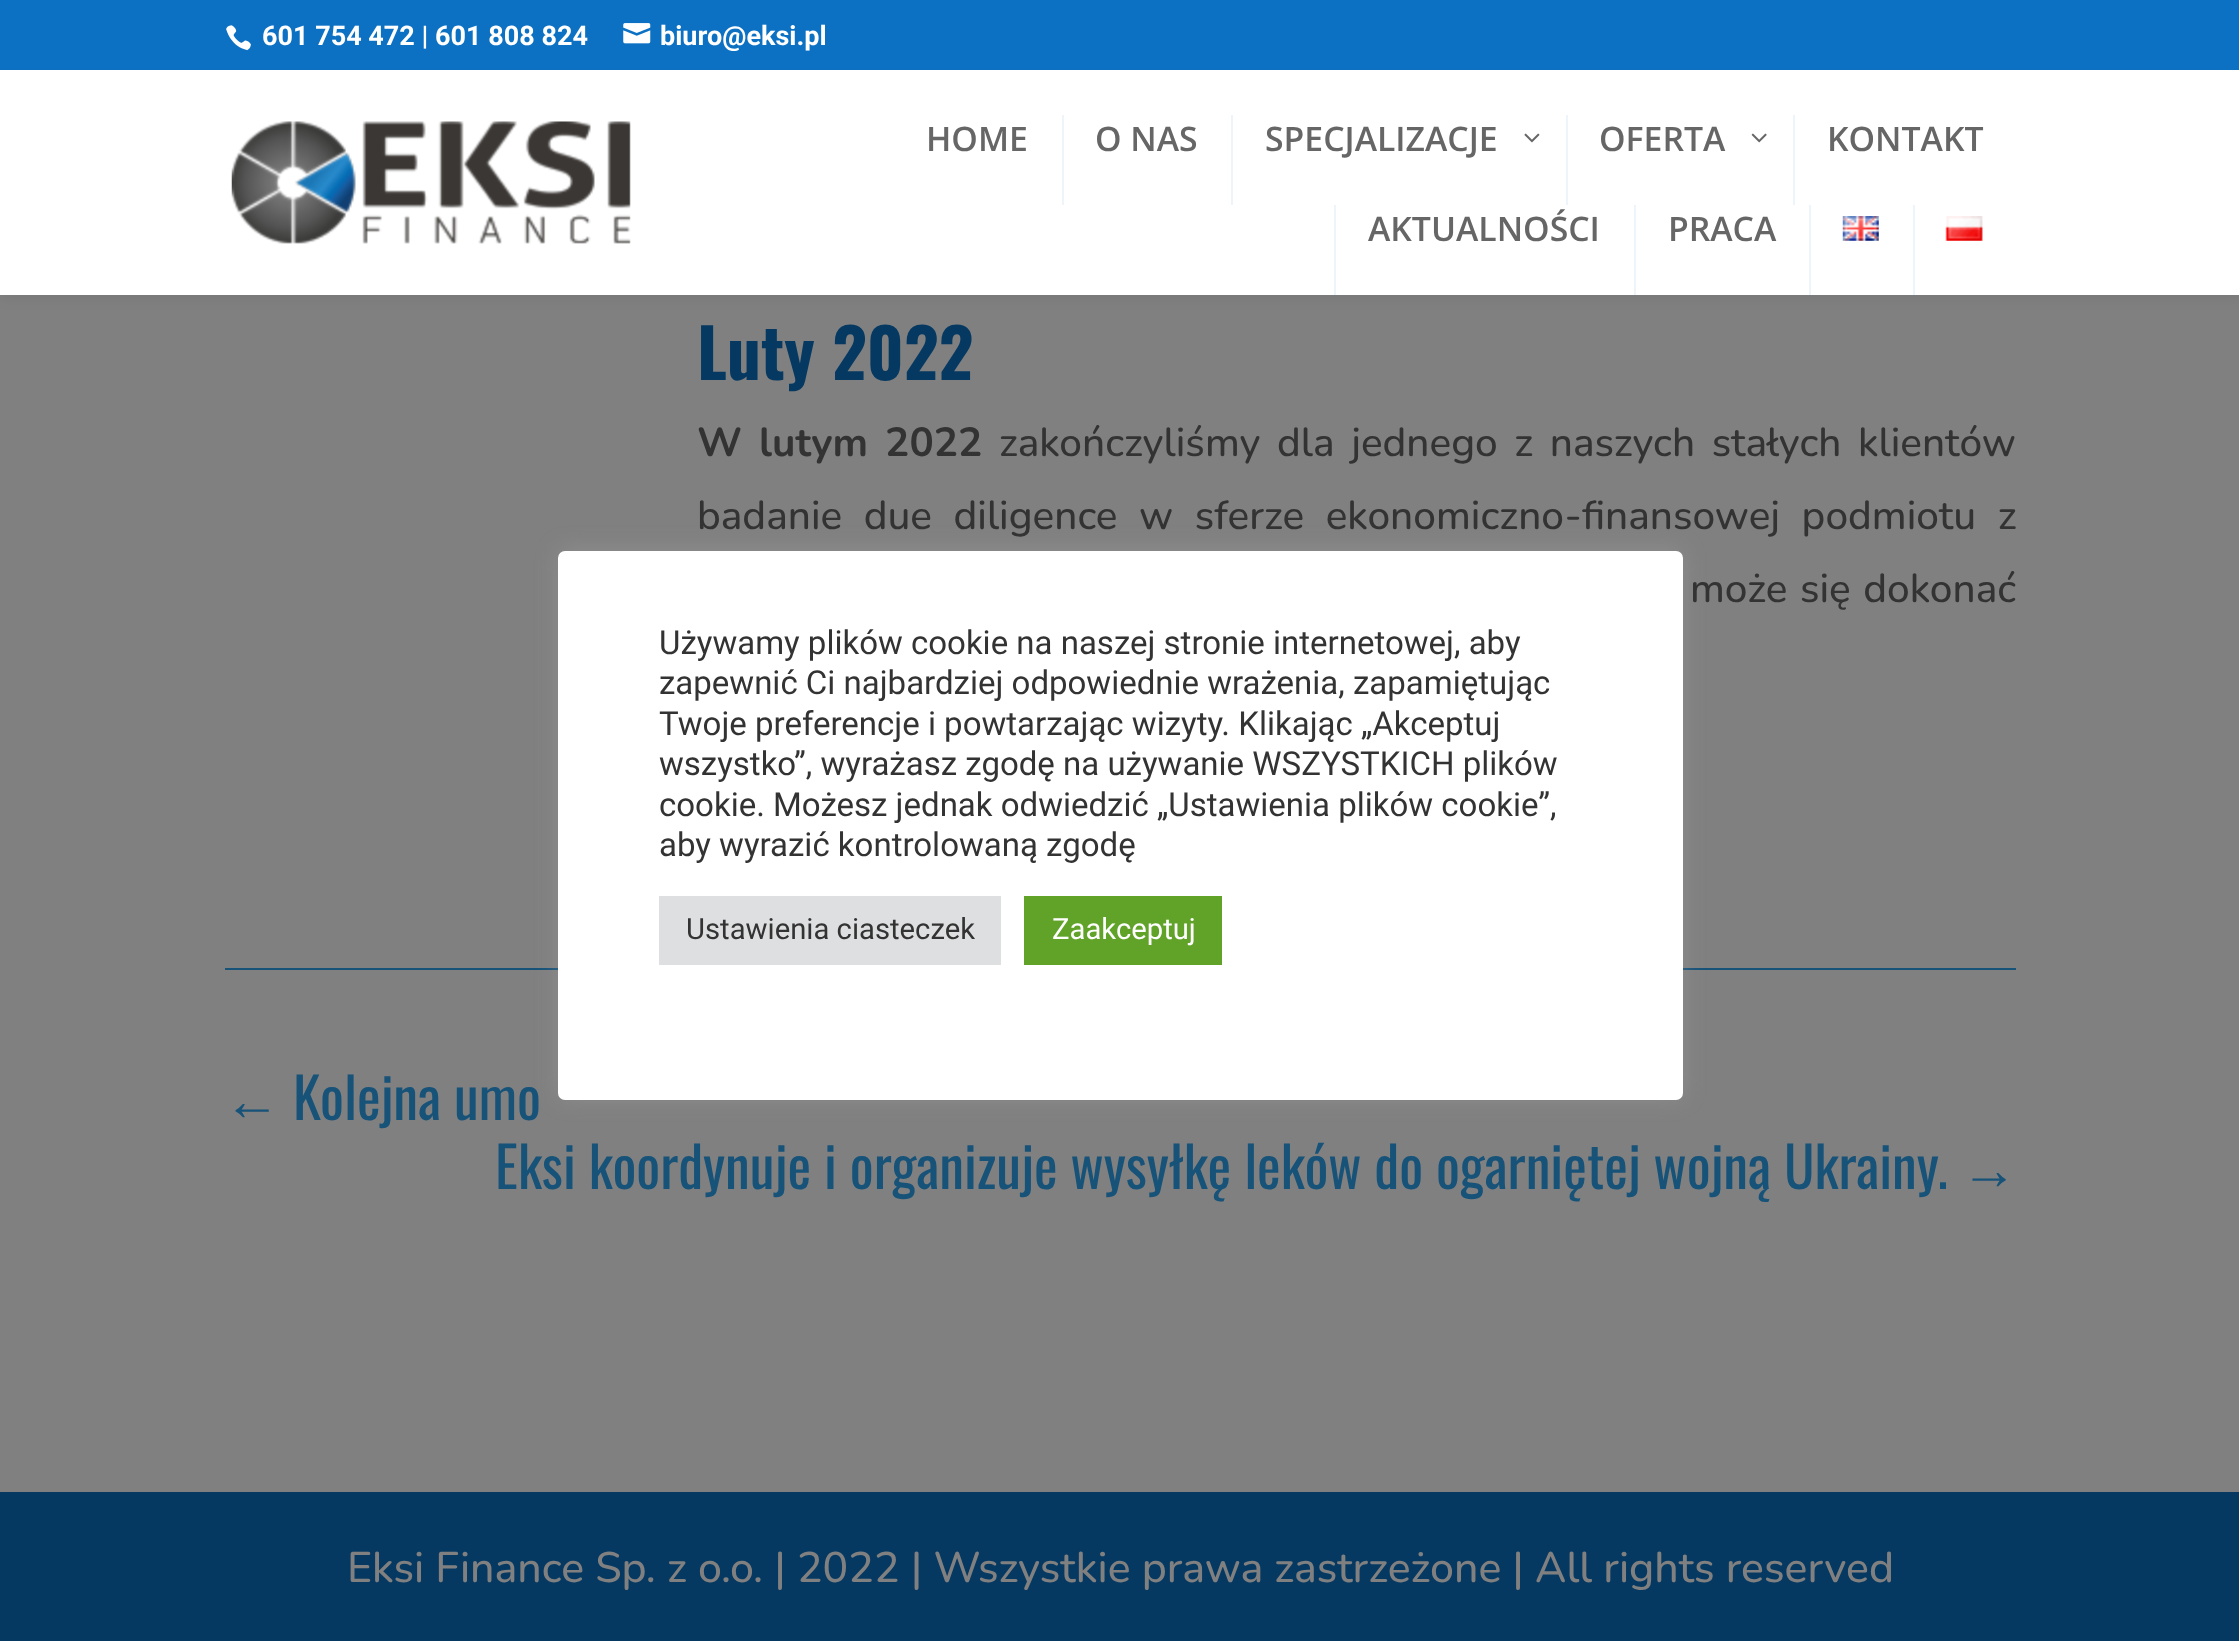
<svg xmlns="http://www.w3.org/2000/svg" xmlns:xlink="http://www.w3.org/1999/xlink" width="2239" height="1641" viewBox="0 0 2239 1641">
<style>
.cls-1{font:bold 27px Roboto;fill:#ffffff}
.cls-2{font:600 33.75px Open Sans;fill:#666666}
.cls-3{font:bold 67.5px Oswald;fill:#063962}
.cls-4{font:200 40.5px Nunito;fill:#333333}
.cls-5{font:200 40.5px 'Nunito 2';fill:#333333}
.cls-6{font:56.25px Liberation Sans;fill:#175279}
.cls-7{font:56.25px Oswald;fill:#175279}
.cls-8{font:200 42.75px 'Nunito 2';fill:#808080}
.cls-9{font:33px Roboto;fill:#333333}
.cls-10{font:29.25px Roboto;fill:#333333}
.cls-11{font:29.25px Roboto;fill:#ffffff}
</style>
<rect width="100%" height="100%" fill="#808080"/>
<rect fill="#000000" fill-opacity="0.1" filter="blur(8px)" x="0" y="70" width="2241" height="225"/>
<rect fill="#0c71c3" x="0" y="0" width="2239" height="70"/>
<image xlink:href="image0.png" x="226" y="25" width="25" height="26"/>
<image xlink:href="image1.png" x="623" y="23" width="28" height="21"/>
<rect fill="#ffffff" x="0" y="70" width="2239" height="225"/>
<image xlink:href="image2.png" x="231" y="121" width="400" height="123"/>
<rect fill="#edf4fa" x="1062" y="115" width="2" height="90"/>
<rect fill="#edf4fa" x="1231" y="115" width="2" height="90"/>
<image xlink:href="image3.png" x="1524" y="133" width="16" height="10"/>
<rect fill="#edf4fa" x="1566" y="115" width="2" height="90"/>
<image xlink:href="image4.png" x="1751" y="133" width="16" height="10"/>
<rect fill="#edf4fa" x="1793" y="115" width="2" height="90"/>
<rect fill="#edf4fa" x="1334" y="205" width="2" height="90"/>
<rect fill="#edf4fa" x="1634" y="205" width="2" height="90"/>
<rect fill="#edf4fa" x="1809" y="205" width="2" height="90"/>
<image xlink:href="image5.png" x="1842" y="216" width="37" height="25"/>
<rect fill="#edf4fa" x="1913" y="205" width="2" height="90"/>
<image xlink:href="image6.png" x="1945" y="216" width="38" height="25"/>
<rect fill="#175279" x="225" y="968" width="1791" height="2"/>
<rect fill="#063962" x="0" y="1492" width="2239" height="149"/>
<rect fill="#acabab" fill-opacity="0.3" filter="blur(11px)" x="558" y="549" width="1125" height="549" rx="7"/>
<rect fill="#ffffff" x="558" y="551" width="1125" height="549" rx="7"/>
<rect fill="#dedfe0" x="659" y="896" width="342" height="69"/>
<rect fill="#61a229" x="1024" y="896" width="198" height="69"/>
<text class="cls-1" x="262" y="45">601 754 472 | 601 808 824</text>
<text class="cls-1" x="660" y="45">biuro@eksi.pl</text>
<text class="cls-2" x="926" y="151">HOME</text>
<text class="cls-2" x="1095" y="151">O NAS</text>
<text class="cls-2" x="1265" y="151">SPECJALIZACJE</text>
<text class="cls-2" x="1599" y="151">OFERTA</text>
<text class="cls-2" x="1827" y="151">KONTAKT</text>
<text class="cls-2" x="1368" y="241">AKTUALNOŚCI</text>
<text class="cls-2" x="1668" y="241">PRACA</text>
<text class="cls-3" x="697" y="380">Luty 2022</text>
<text class="cls-4" x="697" y="456" word-spacing="6">W lutym 2022</text>
<text class="cls-5" x="999" y="456" word-spacing="6">zakończyliśmy dla jednego z naszych stałych klientów</text>
<text class="cls-5" x="697" y="529" word-spacing="11">badanie due diligence w sferze ekonomiczno-finansowej podmiotu z</text>
<text class="cls-5" x="1690" y="602" word-spacing="2">może się dokonać</text>
<text class="cls-6" x="224" y="1120">←</text>
<text class="cls-7" x="293" y="1120">Kolejna umo</text>
<text class="cls-7" x="495" y="1189">Eksi koordynuje i organizuje wysyłkę leków do ogarniętej wojną Ukrainy.</text>
<text class="cls-6" x="1961" y="1189">→</text>
<text class="cls-8" x="347" y="1582">Eksi Finance Sp. z o.o. | 2022 | Wszystkie prawa zastrzeżone | All rights reserved</text>
<text class="cls-9"><tspan x="659" y="654">Używamy plików cookie na naszej stronie internetowej, aby</tspan><tspan x="659" y="694">zapewnić Ci najbardziej odpowiednie wrażenia, zapamiętując</tspan><tspan x="659" y="735">Twoje preferencje i powtarzając wizyty. Klikając „Akceptuj</tspan><tspan x="659" y="775">wszystko”, wyrażasz zgodę na używanie WSZYSTKICH plików</tspan><tspan x="659" y="816">cookie. Możesz jednak odwiedzić „Ustawienia plików cookie”,</tspan><tspan x="659" y="856">aby wyrazić kontrolowaną zgodę</tspan></text>
<text class="cls-10" x="686" y="939">Ustawienia ciasteczek</text>
<text class="cls-11" x="1052" y="939">Zaakceptuj</text>
</svg>
